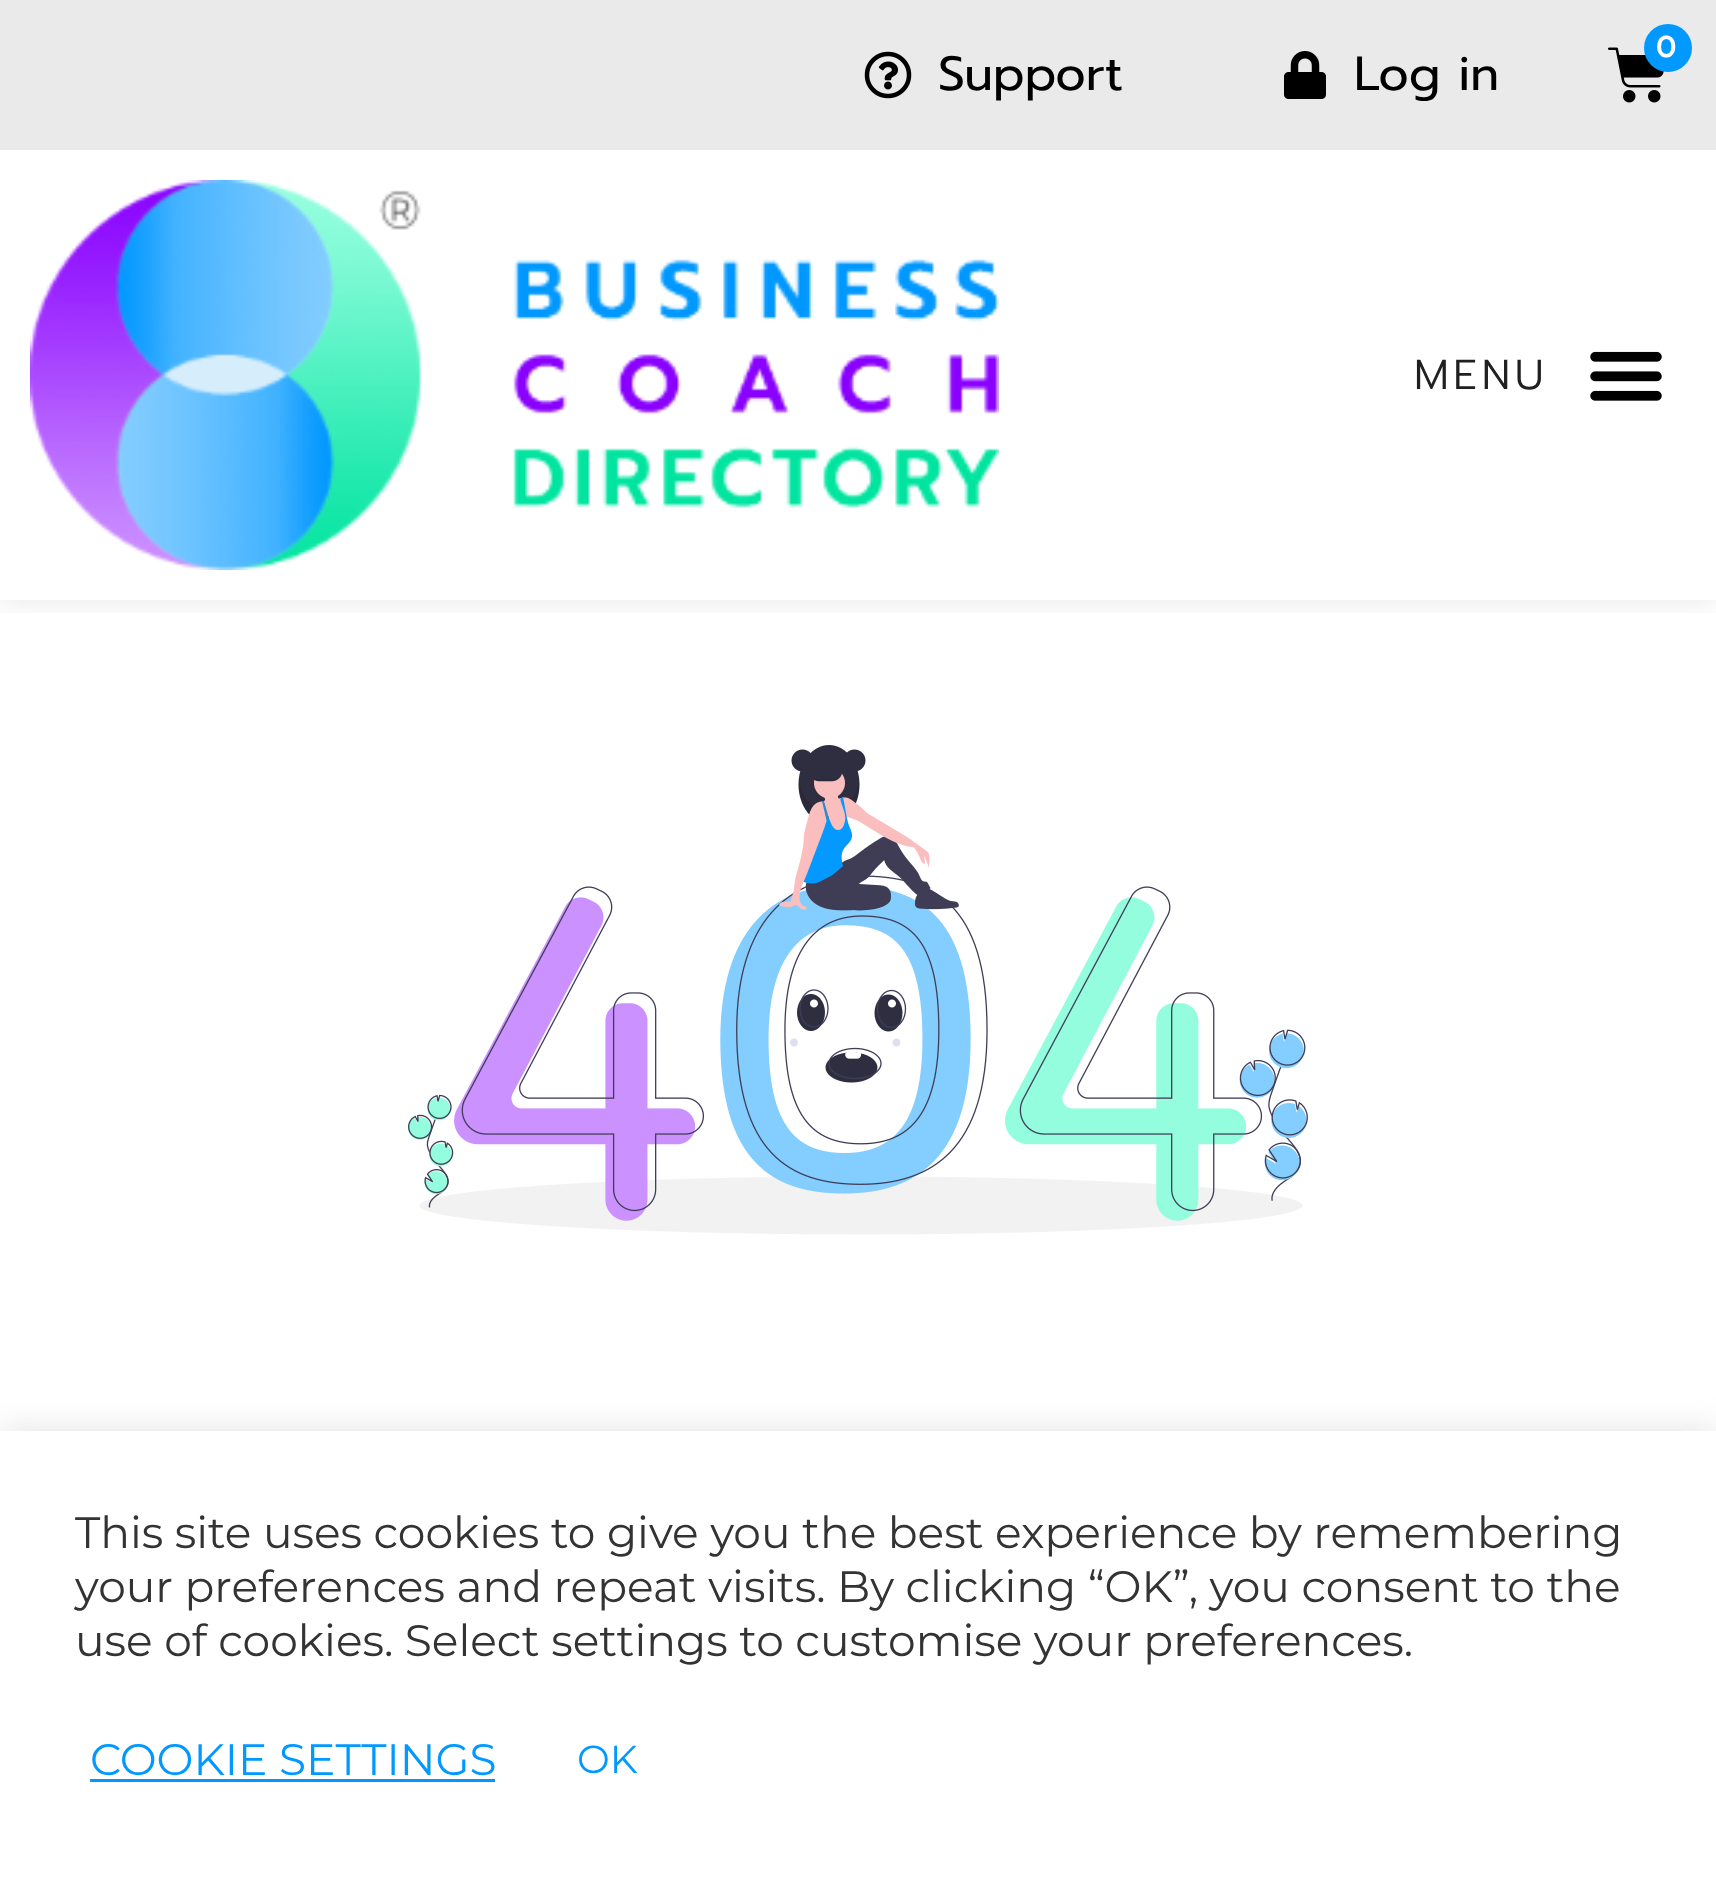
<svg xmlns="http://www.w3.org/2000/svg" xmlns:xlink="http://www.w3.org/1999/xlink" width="1716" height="1895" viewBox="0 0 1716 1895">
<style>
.cls-1{font:500 30px Prompt;letter-spacing:4px;fill:#ffffff}
.cls-2{font:48px Prompt;fill:#000000}
.cls-3{font:300 42px Prompt;letter-spacing:4.5px;fill:#202020}
.cls-4{font:44px Montserrat;fill:#333333}
.cls-5{font:44px Montserrat;fill:#0299ff}
.cls-6{font:39px Montserrat;fill:#0299ff}
</style>
<defs>
<clipPath id="clip1"><rect x="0" y="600" width="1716" height="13"/></clipPath>
</defs>
<rect width="100%" height="100%" fill="#ffffff"/>
<g clip-path="url(#clip1)">
<rect fill="#000000" fill-opacity="0.1" filter="blur(15px)" x="0" y="150" width="1716" height="450"/>
</g>
<rect fill="#eaeaea" x="0" y="0" width="1716" height="150"/>
<image xlink:href="image0.png" x="1608" y="47" width="56" height="56"/>
<circle fill="#0299ff" cx="1668" cy="48" r="24"/>
<image xlink:href="image1.png" x="864" y="51" width="48" height="48"/>
<image xlink:href="image2.png" x="1284" y="51" width="42" height="48"/>
<image xlink:href="image3.png" x="30" y="180" width="969" height="390"/>
<image xlink:href="image4.png" x="1590" y="351" width="72" height="50"/>
<image xlink:href="image5.png" x="408" y="745" width="900" height="490"/>
<rect fill="#acabab" fill-opacity="0.3" filter="blur(15px)" x="0" y="1428" width="1716" height="465"/>
<rect fill="#ffffff" x="0" y="1431" width="1716" height="464"/>
<rect fill="#0299ff" x="90" y="1779" width="405" height="3"/>
<text class="cls-1" x="1656" y="57">0</text>
<text class="cls-2" x="938" y="90">Support</text>
<text class="cls-2" x="1354" y="90">Log in</text>
<text class="cls-3" x="1414" y="389">MENU</text>
<text class="cls-4"><tspan x="75" y="1548">This site uses cookies to give you the best experience by remembering</tspan><tspan x="75" y="1602">your preferences and repeat visits. By clicking “OK”, you consent to the</tspan><tspan x="75" y="1656">use of cookies. Select settings to customise your preferences.</tspan></text>
<text class="cls-5" x="90" y="1775">COOKIE SETTINGS</text>
<text class="cls-6" x="577" y="1773">OK</text>
</svg>
